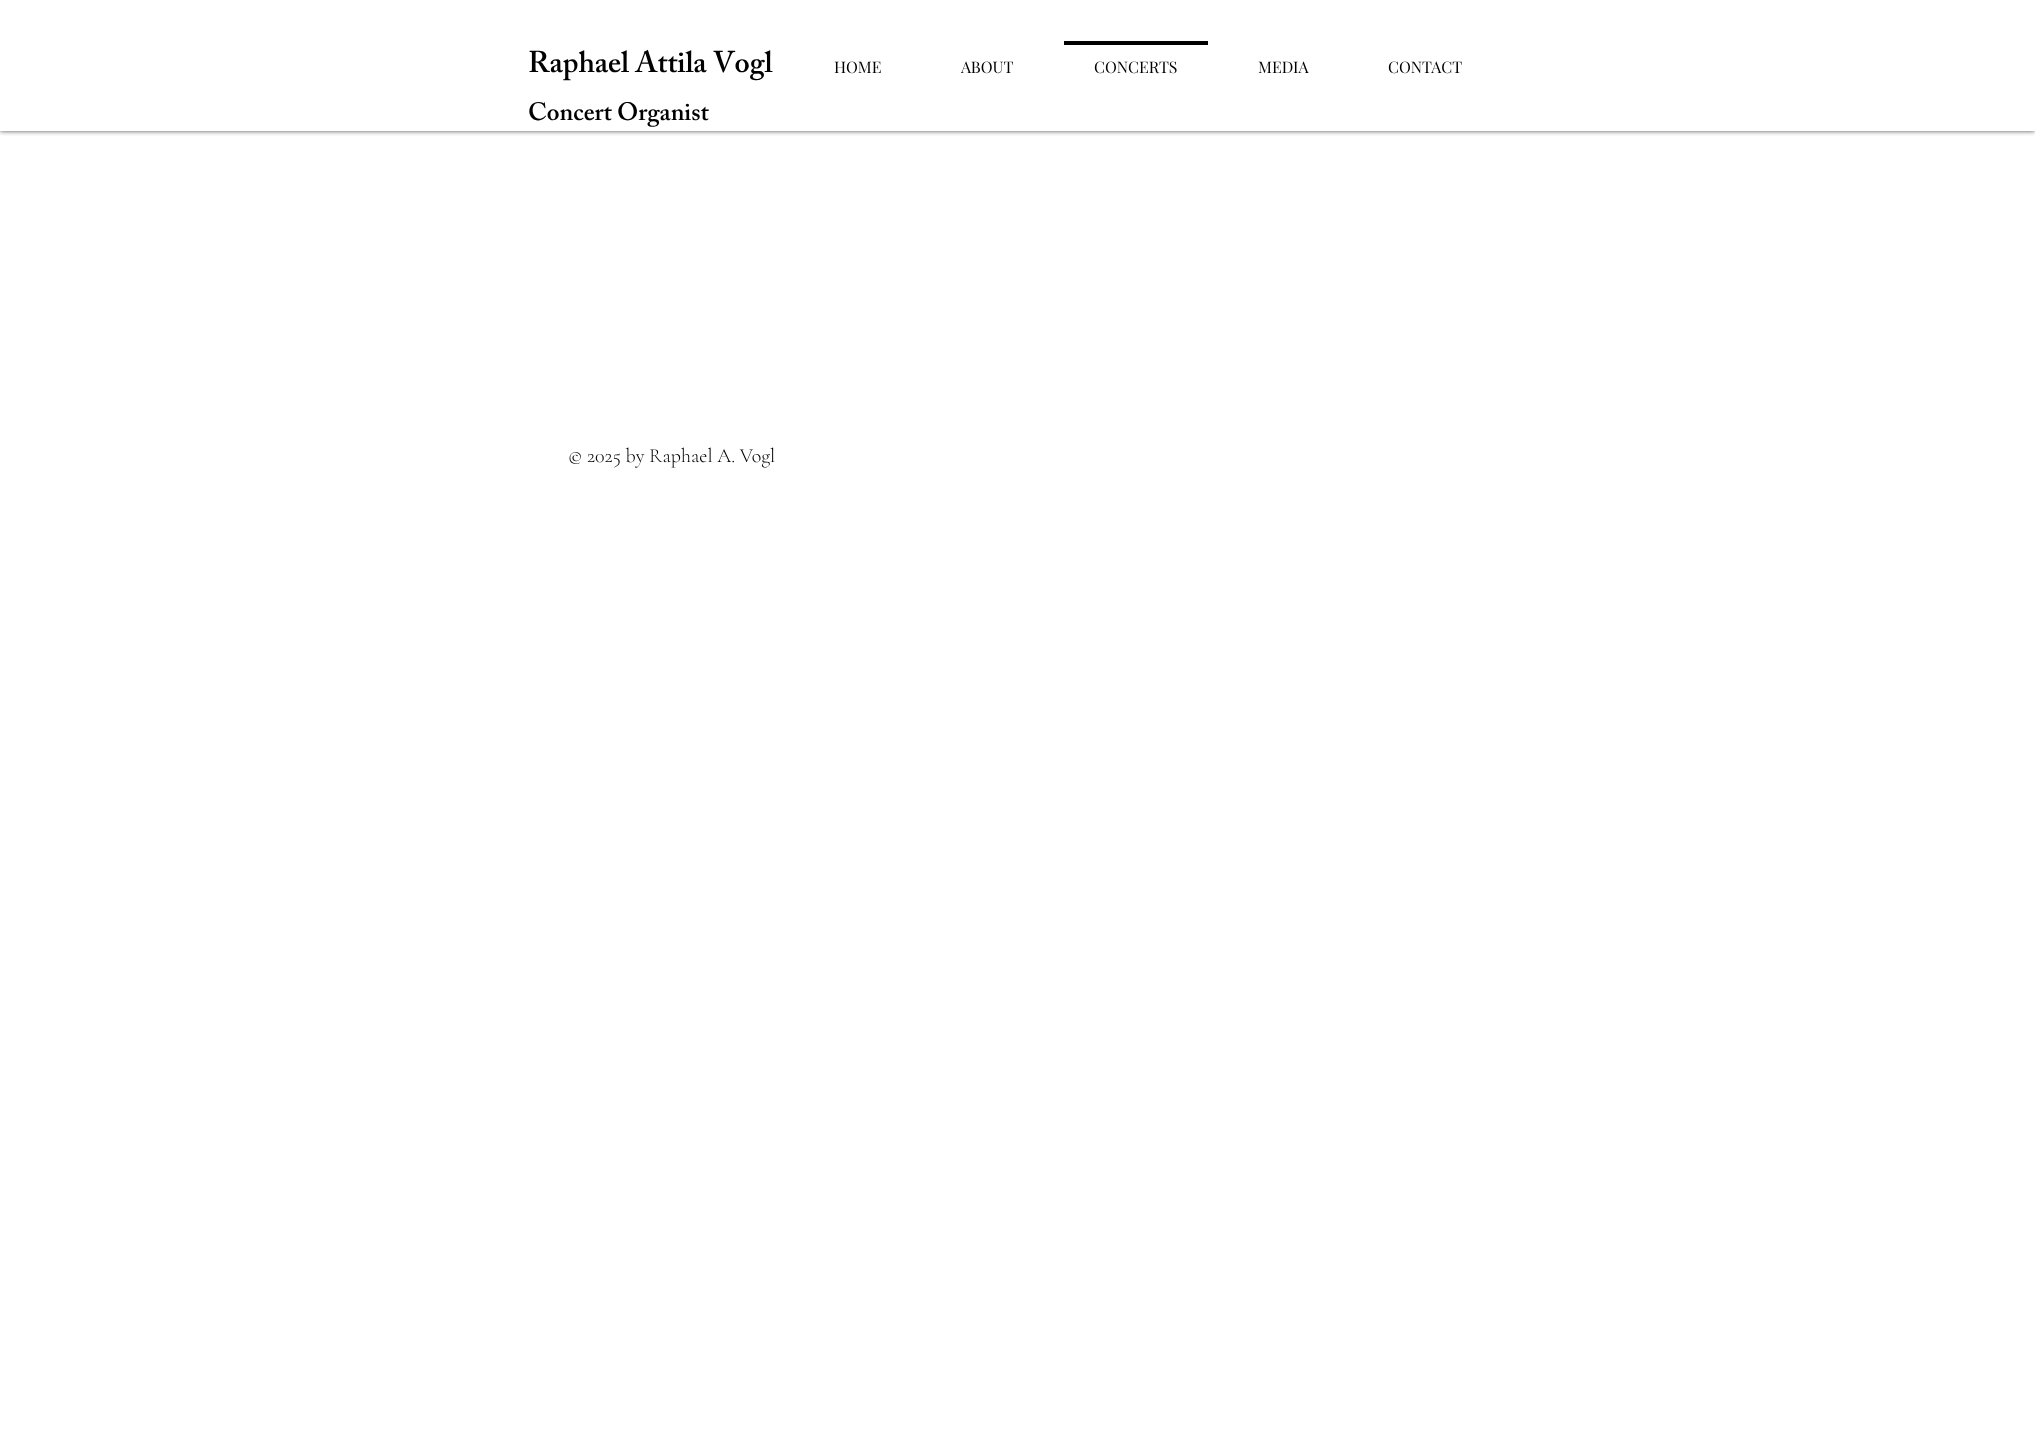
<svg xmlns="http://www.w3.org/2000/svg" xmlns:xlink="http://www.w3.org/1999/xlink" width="2035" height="1444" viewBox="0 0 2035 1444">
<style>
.cls-1{font:600 30px 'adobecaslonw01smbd';fill:#000000}
.cls-2{font:16px Playfair Display;fill:#000000}
.cls-3{font:600 25px 'adobecaslonw01smbd';fill:#000000}
.cls-4{font:300 20px Cormorant Garamond;fill:#000000}
</style>
<defs>
<clipPath id="clip1"><rect x="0" y="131" width="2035" height="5"/></clipPath>
</defs>
<rect width="100%" height="100%" fill="#ffffff"/>
<g clip-path="url(#clip1)">
<rect fill="#000000" fill-opacity="0.7" filter="blur(2.5px)" x="0" y="0" width="2035" height="131"/>
</g>
<rect fill="#000000" x="1064" y="41" width="144" height="4"/>
<text class="cls-1" x="528" y="72">Raphael Attila Vogl</text>
<text class="cls-2" x="834" y="73">HOME</text>
<text class="cls-2" x="961" y="73">ABOUT</text>
<text class="cls-2" x="1094" y="73">CONCERTS</text>
<text class="cls-2" x="1258" y="73">MEDIA</text>
<text class="cls-2" x="1388" y="73">CONTACT</text>
<text class="cls-3" x="528" y="120">Concert Organist</text>
<text class="cls-4" x="568" y="462">© 2025 by Raphael A. Vogl</text>
</svg>
